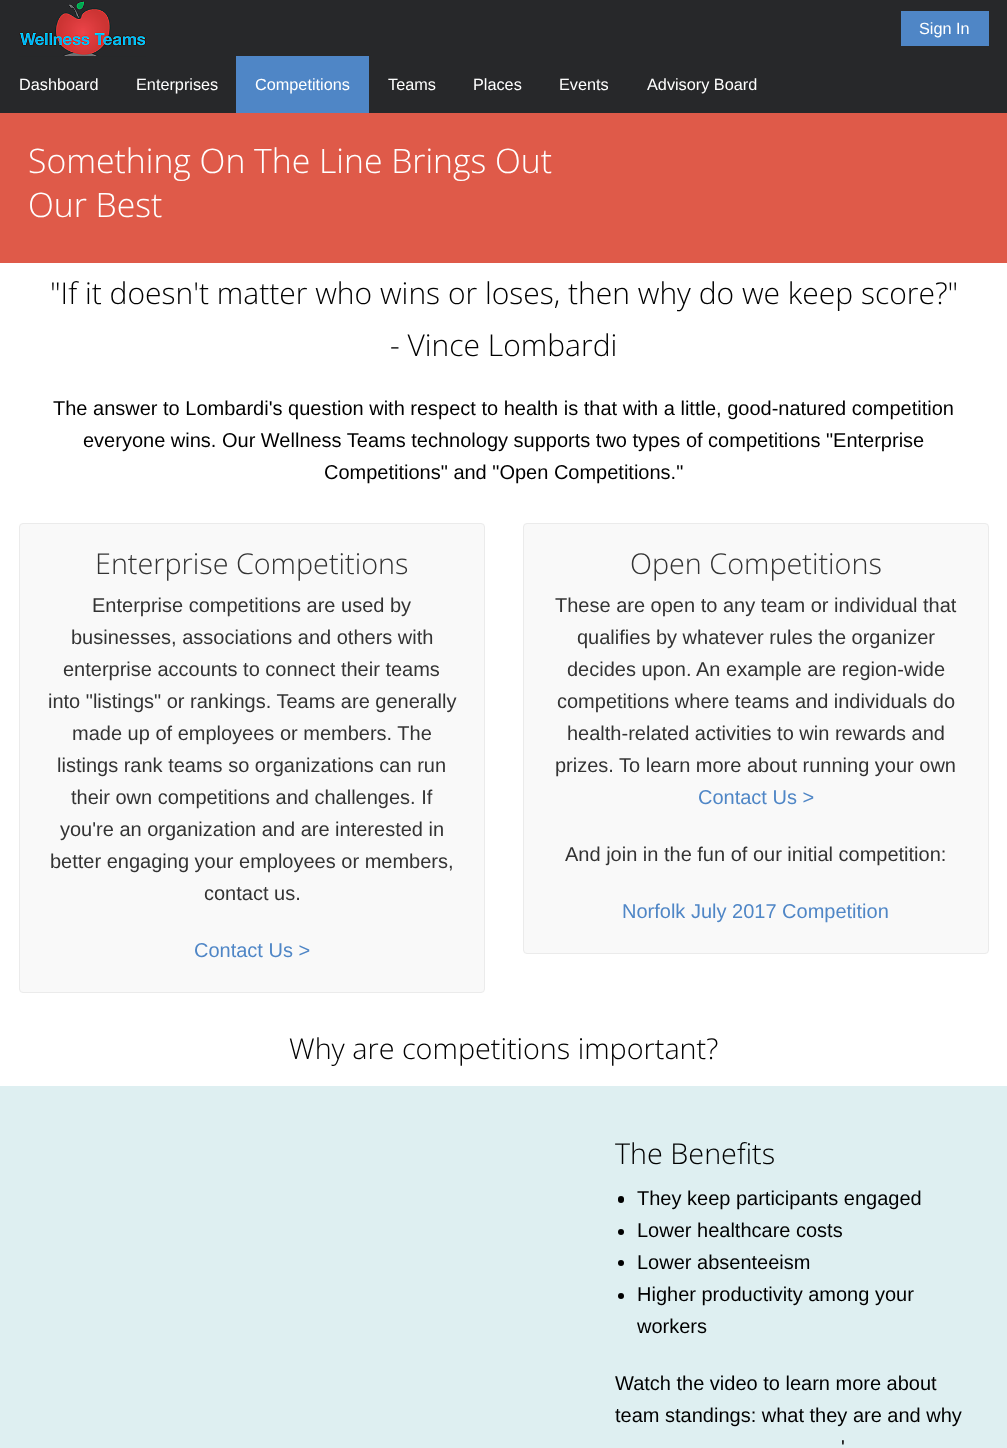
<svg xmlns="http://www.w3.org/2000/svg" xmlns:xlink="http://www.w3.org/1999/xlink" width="1007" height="1448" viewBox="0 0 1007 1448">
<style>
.cls-1{font:16.25px Liberation Sans;fill:#ffffff}
.cls-2{font:300 33.75px Open Sans;fill:#ffffff}
.cls-3{font:300 30px Open Sans;fill:#000000}
.cls-4{font:20px Liberation Sans;fill:#000000}
.cls-5{font:300 28.75px Open Sans;fill:#333333}
.cls-6{font:20px Liberation Sans;fill:#333333}
.cls-7{font:20px Liberation Sans;fill:#4f86c6}
.cls-8{font:300 28.75px Open Sans;fill:#000000}
</style>
<rect width="100%" height="100%" fill="#ffffff"/>
<rect fill="#27282a" x="0" y="0" width="1007" height="113"/>
<image xlink:href="image0.png" x="19" y="0" width="127" height="57"/>
<rect fill="#4f86c6" x="901" y="11" width="88" height="35"/>
<rect fill="#27282a" x="63" y="56" width="34" height="1"/>
<rect fill="#4f86c6" x="236" y="56" width="133" height="57"/>
<rect fill="#df5a49" x="0" y="113" width="1007" height="150"/>
<rect fill="#f9f9f9" stroke="#ebebeb" x="19.5" y="523.5" width="465" height="469" rx="3.5"/>
<rect fill="#f9f9f9" stroke="#ebebeb" x="523.5" y="523.5" width="465" height="430" rx="3.5"/>
<rect fill="#deeff1" x="0" y="1086" width="1007" height="362"/>
<rect fill="#000000" x="618" y="1196" width="6" height="7" rx="3"/>
<circle fill="#000000" cx="621" cy="1232" r="3"/>
<circle fill="#000000" cx="621" cy="1263" r="3"/>
<circle fill="#000000" cx="621" cy="1296" r="3"/>
<text class="cls-1" x="919" y="34">Sign In</text>
<text class="cls-1" x="19" y="90">Dashboard</text>
<text class="cls-1" x="136" y="90">Enterprises</text>
<text class="cls-1" x="255" y="90">Competitions</text>
<text class="cls-1" x="388" y="90">Teams</text>
<text class="cls-1" x="473" y="90">Places</text>
<text class="cls-1" x="559" y="90">Events</text>
<text class="cls-1" x="647" y="90">Advisory Board</text>
<text class="cls-2"><tspan x="28" y="173">Something On The Line Brings Out</tspan><tspan x="28" y="217">Our Best</tspan></text>
<text class="cls-3" x="50" y="304">"If it doesn't matter who wins or loses, then why do we keep score?"</text>
<text class="cls-3" x="390" y="356">- Vince Lombardi</text>
<text class="cls-4" x="53" y="415">The answer to Lombardi's question with respect to health is that with a little, good-natured competition</text>
<text class="cls-4" x="83" y="447">everyone wins. Our Wellness Teams technology supports two types of competitions "Enterprise</text>
<text class="cls-4" x="324" y="479">Competitions" and "Open Competitions."</text>
<text class="cls-5" x="95" y="574">Enterprise Competitions</text>
<text class="cls-6" x="92" y="612">Enterprise competitions are used by</text>
<text class="cls-6" x="71" y="644">businesses, associations and others with</text>
<text class="cls-6" x="63" y="676">enterprise accounts to connect their teams</text>
<text class="cls-6" x="48" y="708">into "listings" or rankings. Teams are generally</text>
<text class="cls-6" x="72" y="740">made up of employees or members. The</text>
<text class="cls-6" x="57" y="772">listings rank teams so organizations can run</text>
<text class="cls-6" x="71" y="804">their own competitions and challenges. If</text>
<text class="cls-6" x="60" y="836">you're an organization and are interested in</text>
<text class="cls-6" x="50" y="868">better engaging your employees or members,</text>
<text class="cls-6" x="204" y="900">contact us.</text>
<text class="cls-7" x="194" y="957">Contact Us &gt;</text>
<text class="cls-5" x="630" y="574">Open Competitions</text>
<text class="cls-6" x="555" y="612">These are open to any team or individual that</text>
<text class="cls-6" x="577" y="644">qualifies by whatever rules the organizer</text>
<text class="cls-6" x="567" y="676">decides upon. An example are region-wide</text>
<text class="cls-6" x="557" y="708">competitions where teams and individuals do</text>
<text class="cls-6" x="567" y="740">health-related activities to win rewards and</text>
<text class="cls-6" x="555" y="772">prizes. To learn more about running your own</text>
<text class="cls-7" x="698" y="804">Contact Us &gt;</text>
<text class="cls-6" x="565" y="861">And join in the fun of our initial competition:</text>
<text class="cls-7" x="622" y="918">Norfolk July 2017 Competition</text>
<text class="cls-8" x="289" y="1059">Why are competitions important?</text>
<text class="cls-8" x="615" y="1164">The Benefits</text>
<text class="cls-4"><tspan x="637" y="1205">They keep participants engaged</tspan><tspan x="637" y="1237">Lower healthcare costs</tspan><tspan x="637" y="1269">Lower absenteeism</tspan><tspan x="637" y="1301">Higher productivity among your</tspan><tspan x="637" y="1333">workers</tspan></text>
<text class="cls-4"><tspan x="615" y="1390">Watch the video to learn more about</tspan><tspan x="615" y="1422">team standings: what they are and why</tspan></text>
<text class="cls-4" x="841" y="1454">'</text>
</svg>
